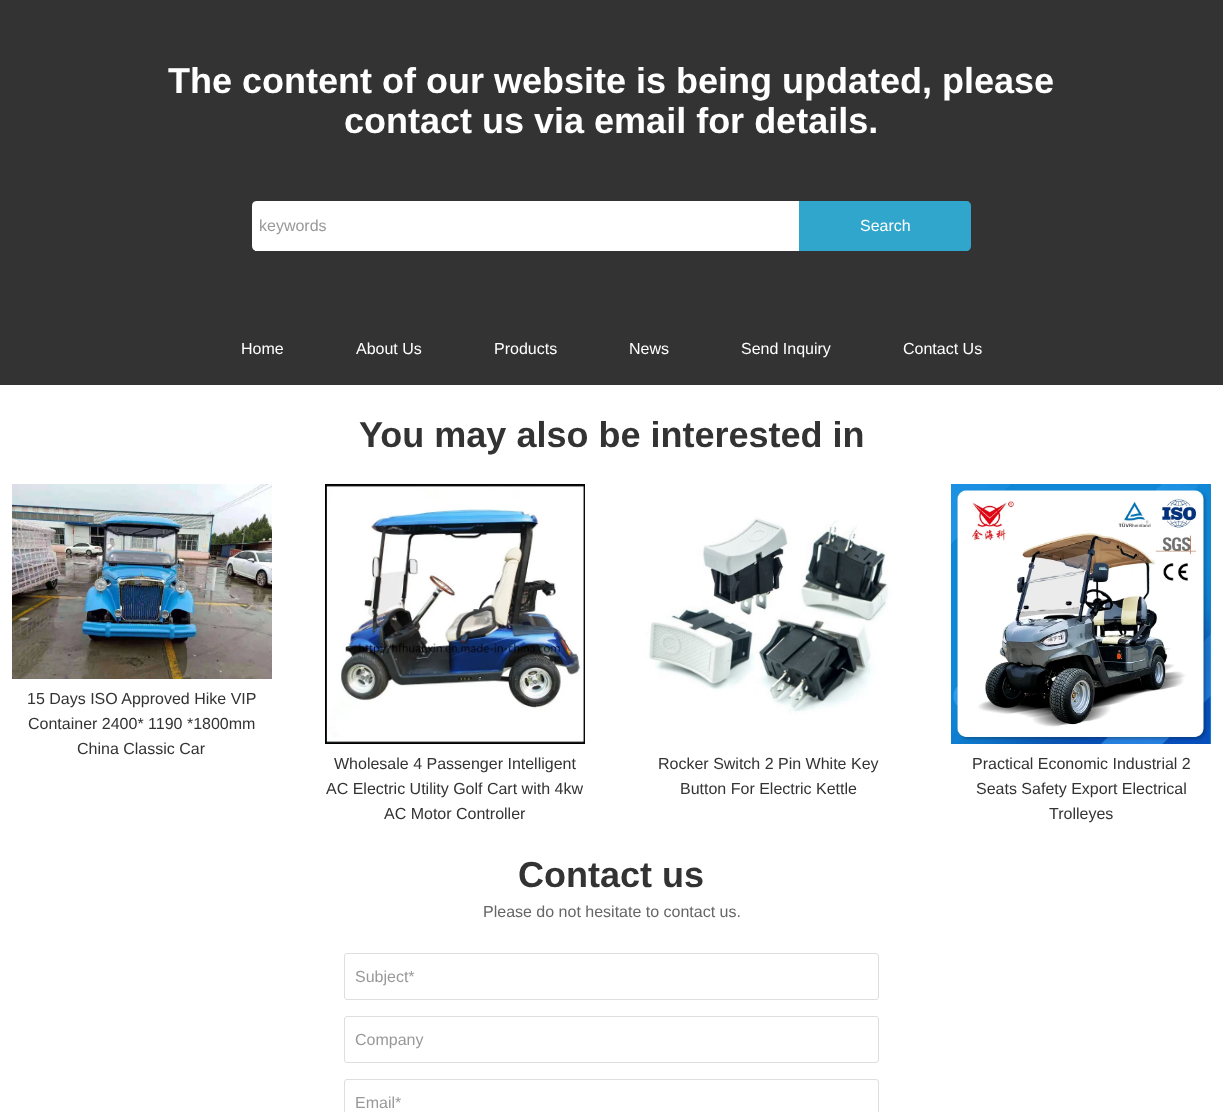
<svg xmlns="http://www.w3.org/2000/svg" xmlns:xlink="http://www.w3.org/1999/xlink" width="1223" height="1112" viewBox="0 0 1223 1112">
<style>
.cls-1{font:bold 36px Liberation Sans;fill:#ffffff}
.cls-2{font:16px Liberation Sans;fill:#999999}
.cls-3{font:16px Liberation Sans;fill:#ffffff}
.cls-4{font:bold 36px Liberation Sans;fill:#333333}
.cls-5{font:16px Liberation Sans;fill:#333333}
.cls-6{font:16px Liberation Sans;fill:#666666}
</style>
<rect width="100%" height="100%" fill="#ffffff"/>
<rect fill="#333333" x="0" y="0" width="1223" height="385"/>
<path fill="#ffffff" d="M257 201H799V251H257C254 251 252 249 252 246V206C252 203 254 201 257 201Z"/>
<path fill="#31a6cc" d="M799 201H966C969 201 971 203 971 206V246C971 249 969 251 966 251H799Z"/>
<image xlink:href="image0.png" x="12" y="484" width="260" height="195"/>
<image xlink:href="image1.png" x="325" y="484" width="260" height="260"/>
<image xlink:href="image2.png" x="638" y="484" width="260" height="260"/>
<image xlink:href="image3.png" x="951" y="484" width="260" height="260"/>
<rect fill="none" stroke="#dedede" x="344.5" y="953.5" width="534" height="46" rx="2.5"/>
<rect fill="none" stroke="#dedede" x="344.5" y="1016.5" width="534" height="46" rx="2.5"/>
<rect fill="none" stroke="#dedede" x="344.5" y="1079.5" width="534" height="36" rx="2.5"/>
<text class="cls-1" x="168" y="93">The content of our website is being updated, please</text>
<text class="cls-1" x="344" y="133">contact us via email for details.</text>
<text class="cls-2" x="259" y="231">keywords</text>
<text class="cls-3" x="860" y="231">Search</text>
<text class="cls-3" x="241" y="354">Home</text>
<text class="cls-3" x="356" y="354">About Us</text>
<text class="cls-3" x="494" y="354">Products</text>
<text class="cls-3" x="629" y="354">News</text>
<text class="cls-3" x="741" y="354">Send Inquiry</text>
<text class="cls-3" x="903" y="354">Contact Us</text>
<text class="cls-4" x="359" y="447">You may also be interested in</text>
<text class="cls-5" x="27" y="704">15 Days ISO Approved Hike VIP</text>
<text class="cls-5" x="28" y="729">Container 2400* 1190 *1800mm</text>
<text class="cls-5" x="77" y="754">China Classic Car</text>
<text class="cls-5" x="334" y="769">Wholesale 4 Passenger Intelligent</text>
<text class="cls-5" x="326" y="794">AC Electric Utility Golf Cart with 4kw</text>
<text class="cls-5" x="384" y="819">AC Motor Controller</text>
<text class="cls-5" x="658" y="769">Rocker Switch 2 Pin White Key</text>
<text class="cls-5" x="680" y="794">Button For Electric Kettle</text>
<text class="cls-5" x="972" y="769">Practical Economic Industrial 2</text>
<text class="cls-5" x="976" y="794">Seats Safety Export Electrical</text>
<text class="cls-5" x="1049" y="819">Trolleyes</text>
<text class="cls-4" x="518" y="887">Contact us</text>
<text class="cls-6" x="483" y="917">Please do not hesitate to contact us.</text>
<text class="cls-2" x="355" y="982">Subject*</text>
<text class="cls-2" x="355" y="1045">Company</text>
<text class="cls-2" x="355" y="1108">Email*</text>
</svg>
